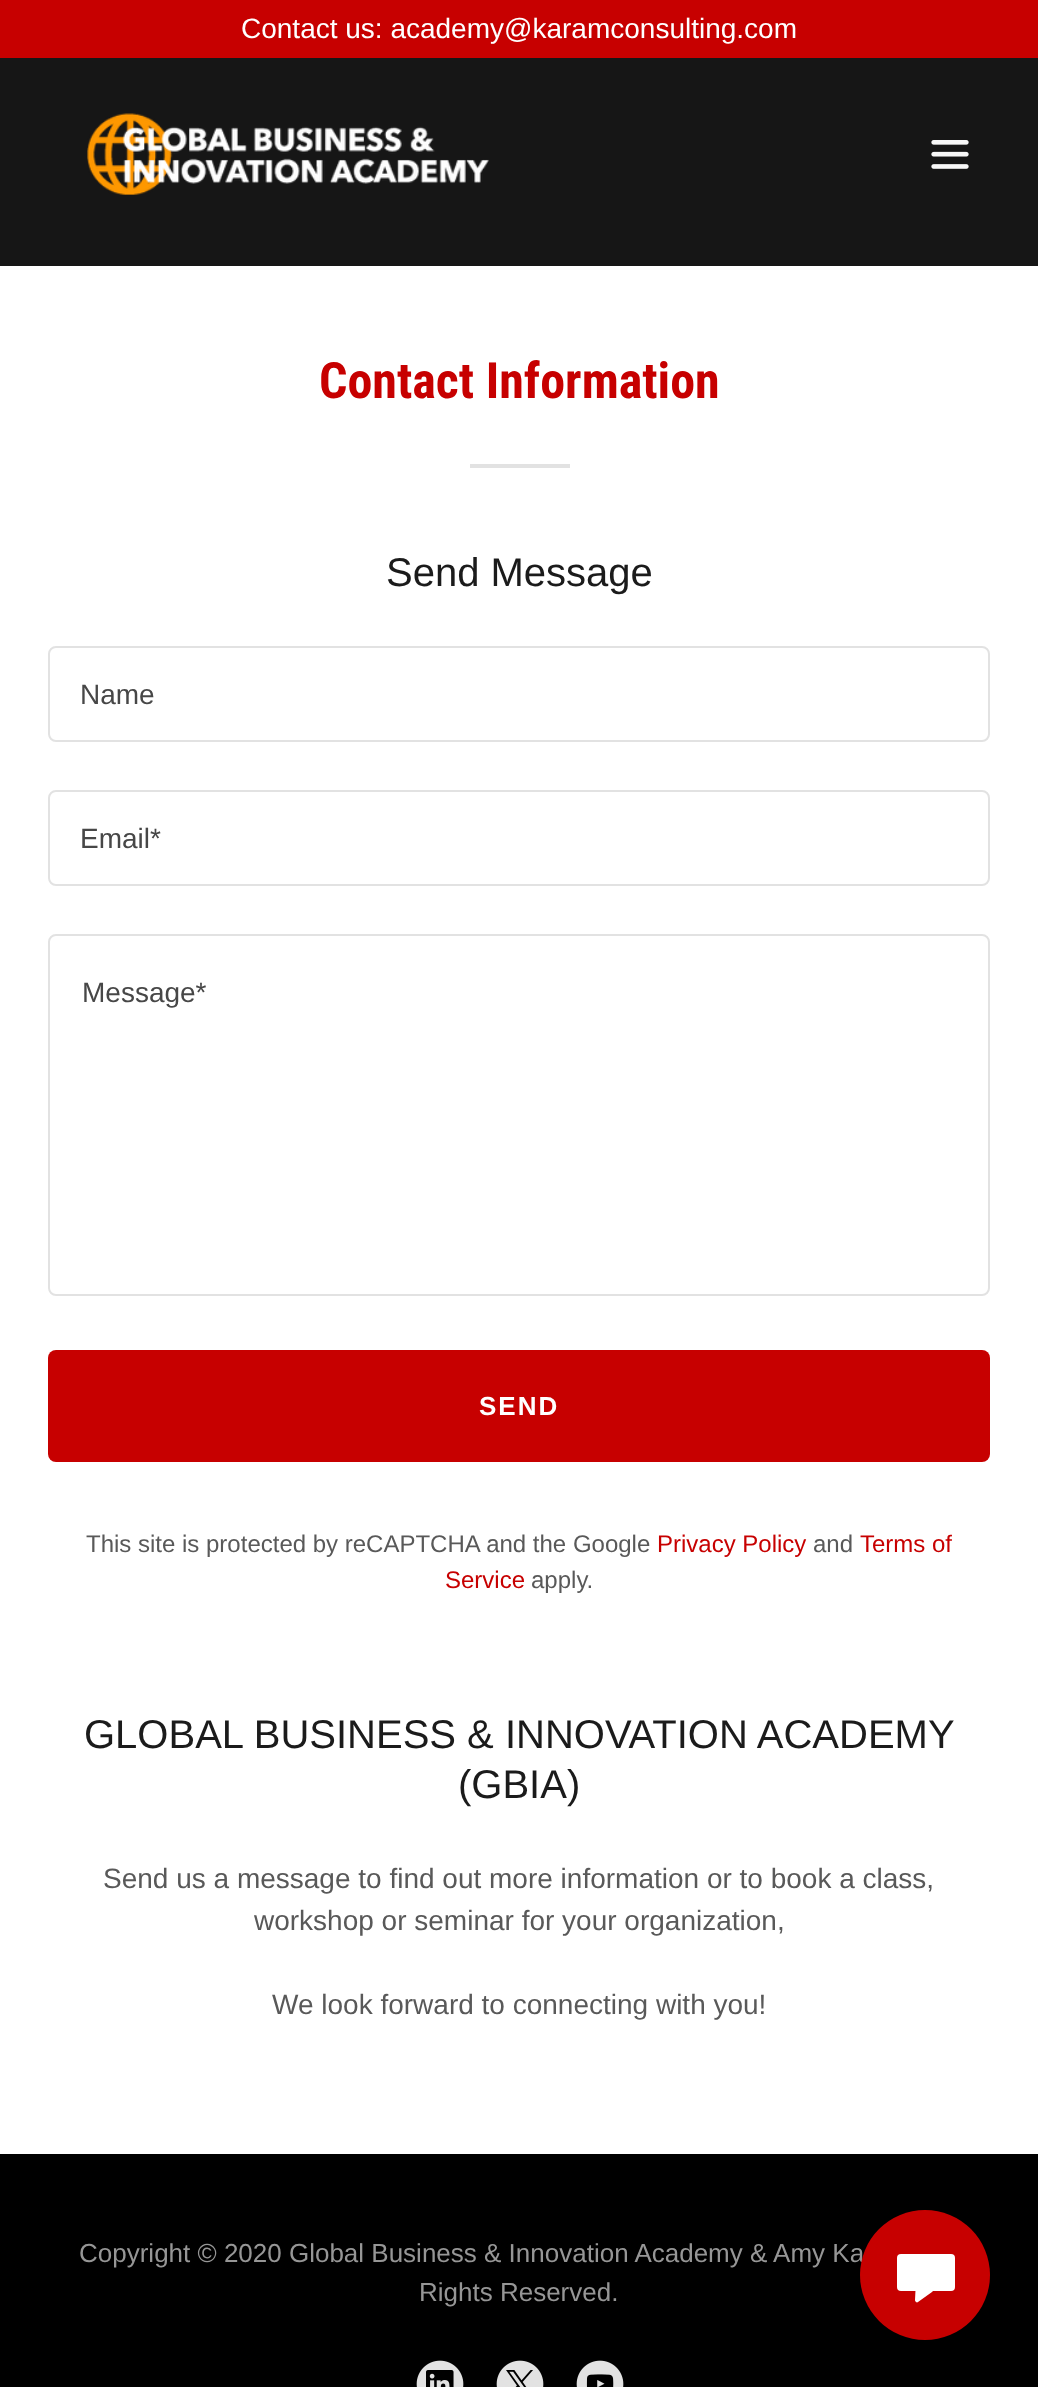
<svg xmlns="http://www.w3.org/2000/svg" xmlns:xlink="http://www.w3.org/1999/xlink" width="1038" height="2387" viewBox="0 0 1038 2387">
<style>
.cls-1{font:28px Liberation Sans;fill:#ffffff}
.cls-2{font:bold 50px Roboto Condensed;fill:#c70000}
.cls-3{font:40px Liberation Sans;fill:#1b1b1b}
.cls-4{font:28px Liberation Sans;fill:#474747}
.cls-5{font:bold 26px Liberation Sans;letter-spacing:2px;fill:#ffffff}
.cls-6{font:24px Liberation Sans;fill:#595959}
.cls-7{font:24px Liberation Sans;fill:#c70000}
.cls-8{font:28px Liberation Sans;fill:#595959}
.cls-9{font:26px Liberation Sans;fill:#969696}
</style>
<rect width="100%" height="100%" fill="#000000"/>
<rect fill="#161616" x="0" y="58" width="1038" height="208"/>
<rect fill="#c70000" x="0" y="0" width="1038" height="58"/>
<image xlink:href="image0.png" x="87" y="113" width="402" height="82"/>
<image xlink:href="image1.png" x="931" y="140" width="38" height="29"/>
<rect fill="#ffffff" x="0" y="266" width="1038" height="1888"/>
<rect fill="#e2e2e2" x="470" y="464" width="100" height="4"/>
<rect fill="none" stroke="#e2e2e2" stroke-width="2" x="49" y="647" width="940" height="94" rx="7"/>
<rect fill="none" stroke="#e2e2e2" stroke-width="2" x="49" y="791" width="940" height="94" rx="7"/>
<rect fill="none" stroke="#e2e2e2" stroke-width="2" x="49" y="935" width="940" height="360" rx="7"/>
<rect fill="#c70000" x="48" y="1350" width="942" height="112" rx="8"/>
<image xlink:href="image2.png" x="416" y="2360" width="48" height="27"/>
<image xlink:href="image3.png" x="496" y="2360" width="48" height="27"/>
<image xlink:href="image4.png" x="576" y="2360" width="48" height="27"/>
<rect fill="#000000" fill-opacity="0.25" filter="blur(18px)" x="860" y="2216" width="130" height="130" rx="65"/>
<text class="cls-1" x="241" y="38">Contact us: academy@karamconsulting.com</text>
<text class="cls-2" x="319" y="398">Contact Information</text>
<text class="cls-3" x="386" y="586">Send Message</text>
<text class="cls-4" x="80" y="704">Name</text>
<text class="cls-4" x="80" y="848">Email*</text>
<text class="cls-4" x="82" y="1002">Message*</text>
<text class="cls-5" x="479" y="1415">SEND</text>
<text class="cls-6" x="86" y="1552">This site is protected by reCAPTCHA and the Google</text>
<text class="cls-7" x="657" y="1552">Privacy Policy</text>
<text class="cls-6" x="813" y="1552">and</text>
<text class="cls-7" x="860" y="1552">Terms of</text>
<text class="cls-7" x="445" y="1588">Service</text>
<text class="cls-6" x="531" y="1588">apply.</text>
<text class="cls-3" x="84" y="1748">GLOBAL BUSINESS &amp; INNOVATION ACADEMY</text>
<text class="cls-3" x="458" y="1798">(GBIA)</text>
<text class="cls-8" x="103" y="1888">Send us a message to find out more information or to book a class,</text>
<text class="cls-8" x="254" y="1930">workshop or seminar for your organization,</text>
<text class="cls-8" x="272" y="2014">We look forward to connecting with you!</text>
<text class="cls-9" x="79" y="2262">Copyright © 2020 Global Business &amp; Innovation Academy &amp; Amy Ka</text>
<text class="cls-9" x="419" y="2301">Rights Reserved.</text>
<circle fill="#c70000" cx="925" cy="2275" r="65"/>
<rect fill="#ffffff" x="897" y="2254" width="58" height="37" rx="4"/>
<path fill="#ffffff" d="M915 2300L915.5 2290C915.5 2289 916.5 2288 917.5 2288H931C933 2288 934 2291 932 2292L918 2302C917.5 2302.5 916.5 2302.5 916 2302C915.5 2301.5 915 2301 915 2300Z"/>
</svg>
